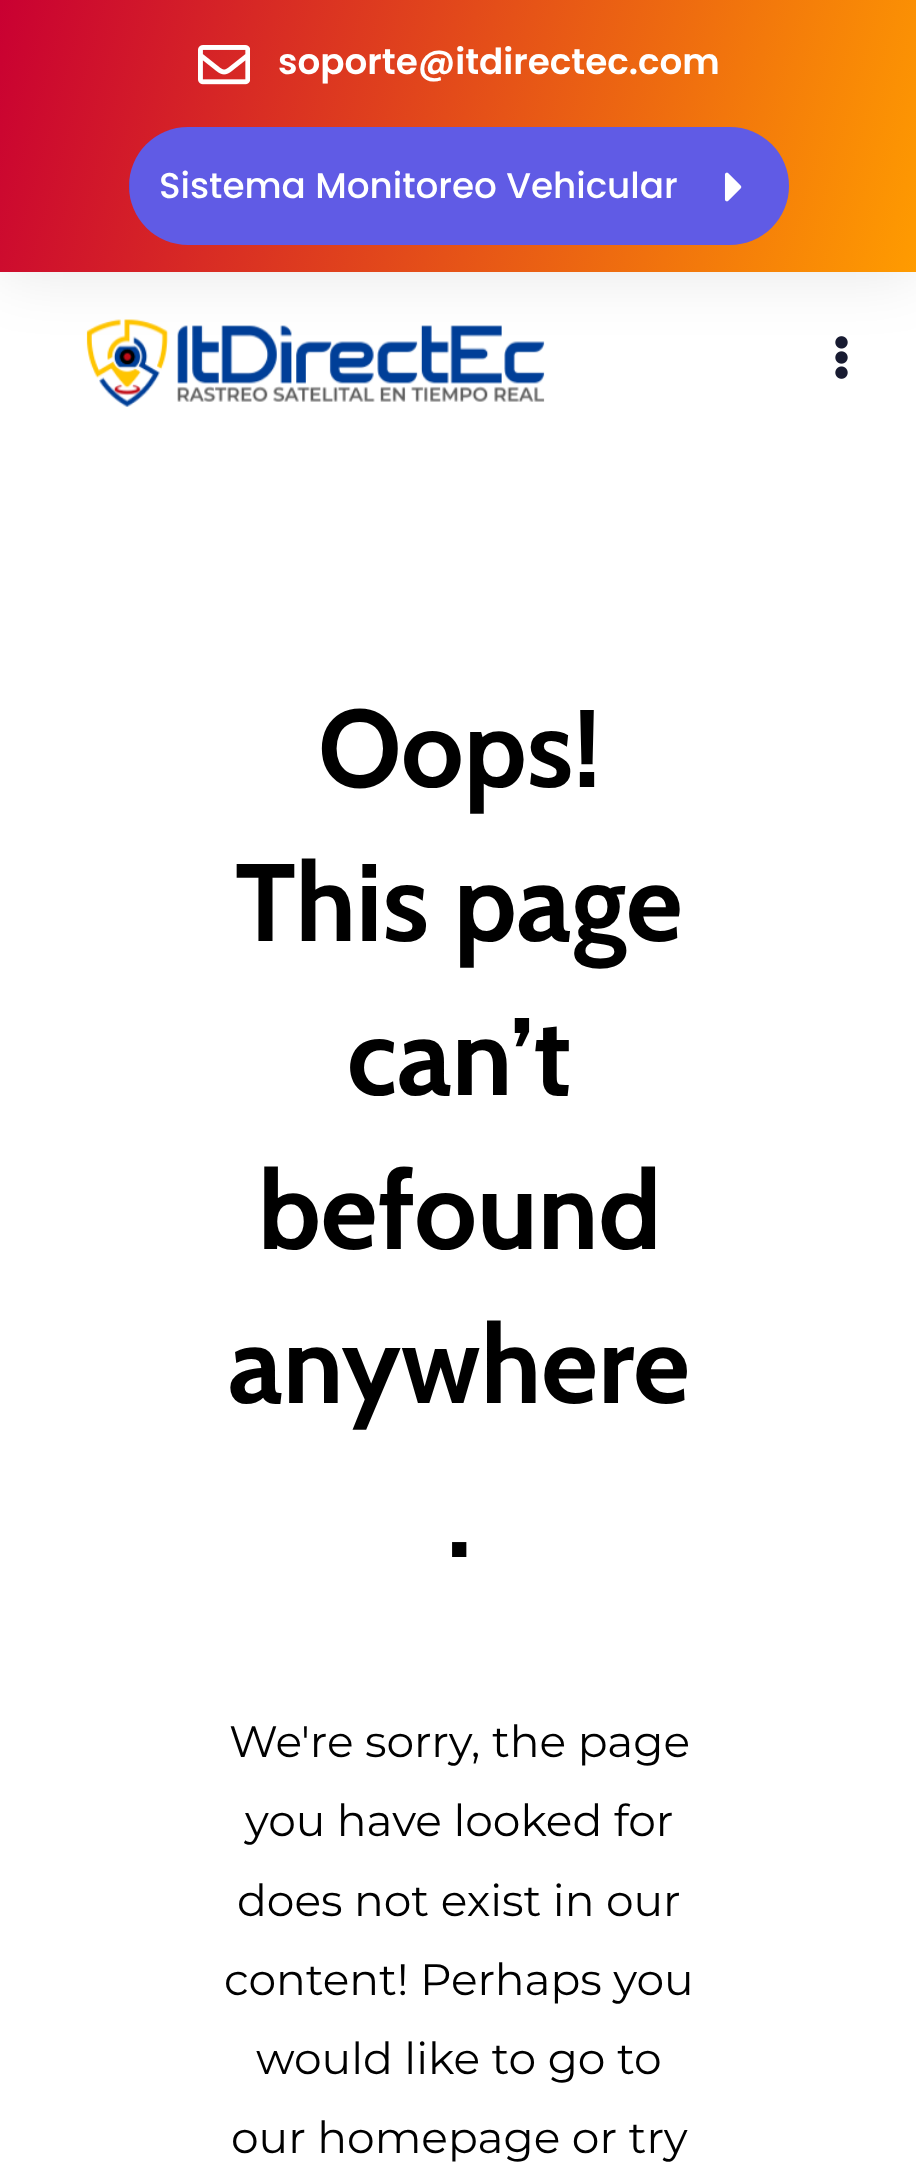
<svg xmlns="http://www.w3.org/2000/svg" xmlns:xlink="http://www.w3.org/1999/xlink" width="916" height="2171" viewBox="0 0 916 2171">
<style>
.cls-1{font:600 35.75px Poppins;fill:#ffffff}
.cls-2{font:500 35.75px Poppins;fill:#ffffff}
.cls-3{font:bold 110px Cabin;fill:#000000}
.cls-4{font:44px Montserrat;fill:#000000}
</style>
<defs>
<linearGradient id="g1" gradientUnits="userSpaceOnUse" x1="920" y1="268" x2="-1.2" y2="4.1"><stop offset="0" stop-color="#ff9c00"/><stop offset="1" stop-color="#c90032"/></linearGradient>
</defs>
<rect width="100%" height="100%" fill="#ffffff"/>
<image xlink:href="image2.png" x="86" y="319" width="459" height="88"/>
<image xlink:href="image3.png" x="835" y="336" width="13" height="43"/>
<rect fill="#000000" fill-opacity="0.1" filter="blur(33px)" x="0" y="0" width="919" height="272"/>
<rect fill="url(#g1)" x="0" y="0" width="916" height="272"/>
<image xlink:href="image0.png" x="198" y="45" width="52" height="40"/>
<rect fill="#605be5" x="129" y="127" width="660" height="118" rx="59"/>
<path fill="#4a45d2" d="M129.5 180V193C129 189 129 184.5 129.5 180Z"/>
<image xlink:href="image1.png" x="724" y="172" width="18" height="30"/>
<text class="cls-1" x="278" y="74">soporte@itdirectec.com</text>
<text class="cls-2" x="159" y="198">Sistema Monitoreo Vehicular</text>
<text class="cls-3" x="318" y="787">Oops!</text>
<text class="cls-3" x="235" y="941">This page</text>
<text class="cls-3" x="347" y="1095">can’t</text>
<text class="cls-3" x="258" y="1249">befound</text>
<text class="cls-3" x="228" y="1403">anywhere</text>
<text class="cls-3" x="447" y="1557">.</text>
<text class="cls-4" x="229" y="1757">We're sorry, the page</text>
<text class="cls-4" x="245" y="1836">you have looked for</text>
<text class="cls-4" x="237" y="1916">does not exist in our</text>
<text class="cls-4" x="224" y="1995">content! Perhaps you</text>
<text class="cls-4" x="256" y="2074">would like to go to</text>
<text class="cls-4" x="231" y="2153">our homepage or try</text>
</svg>
